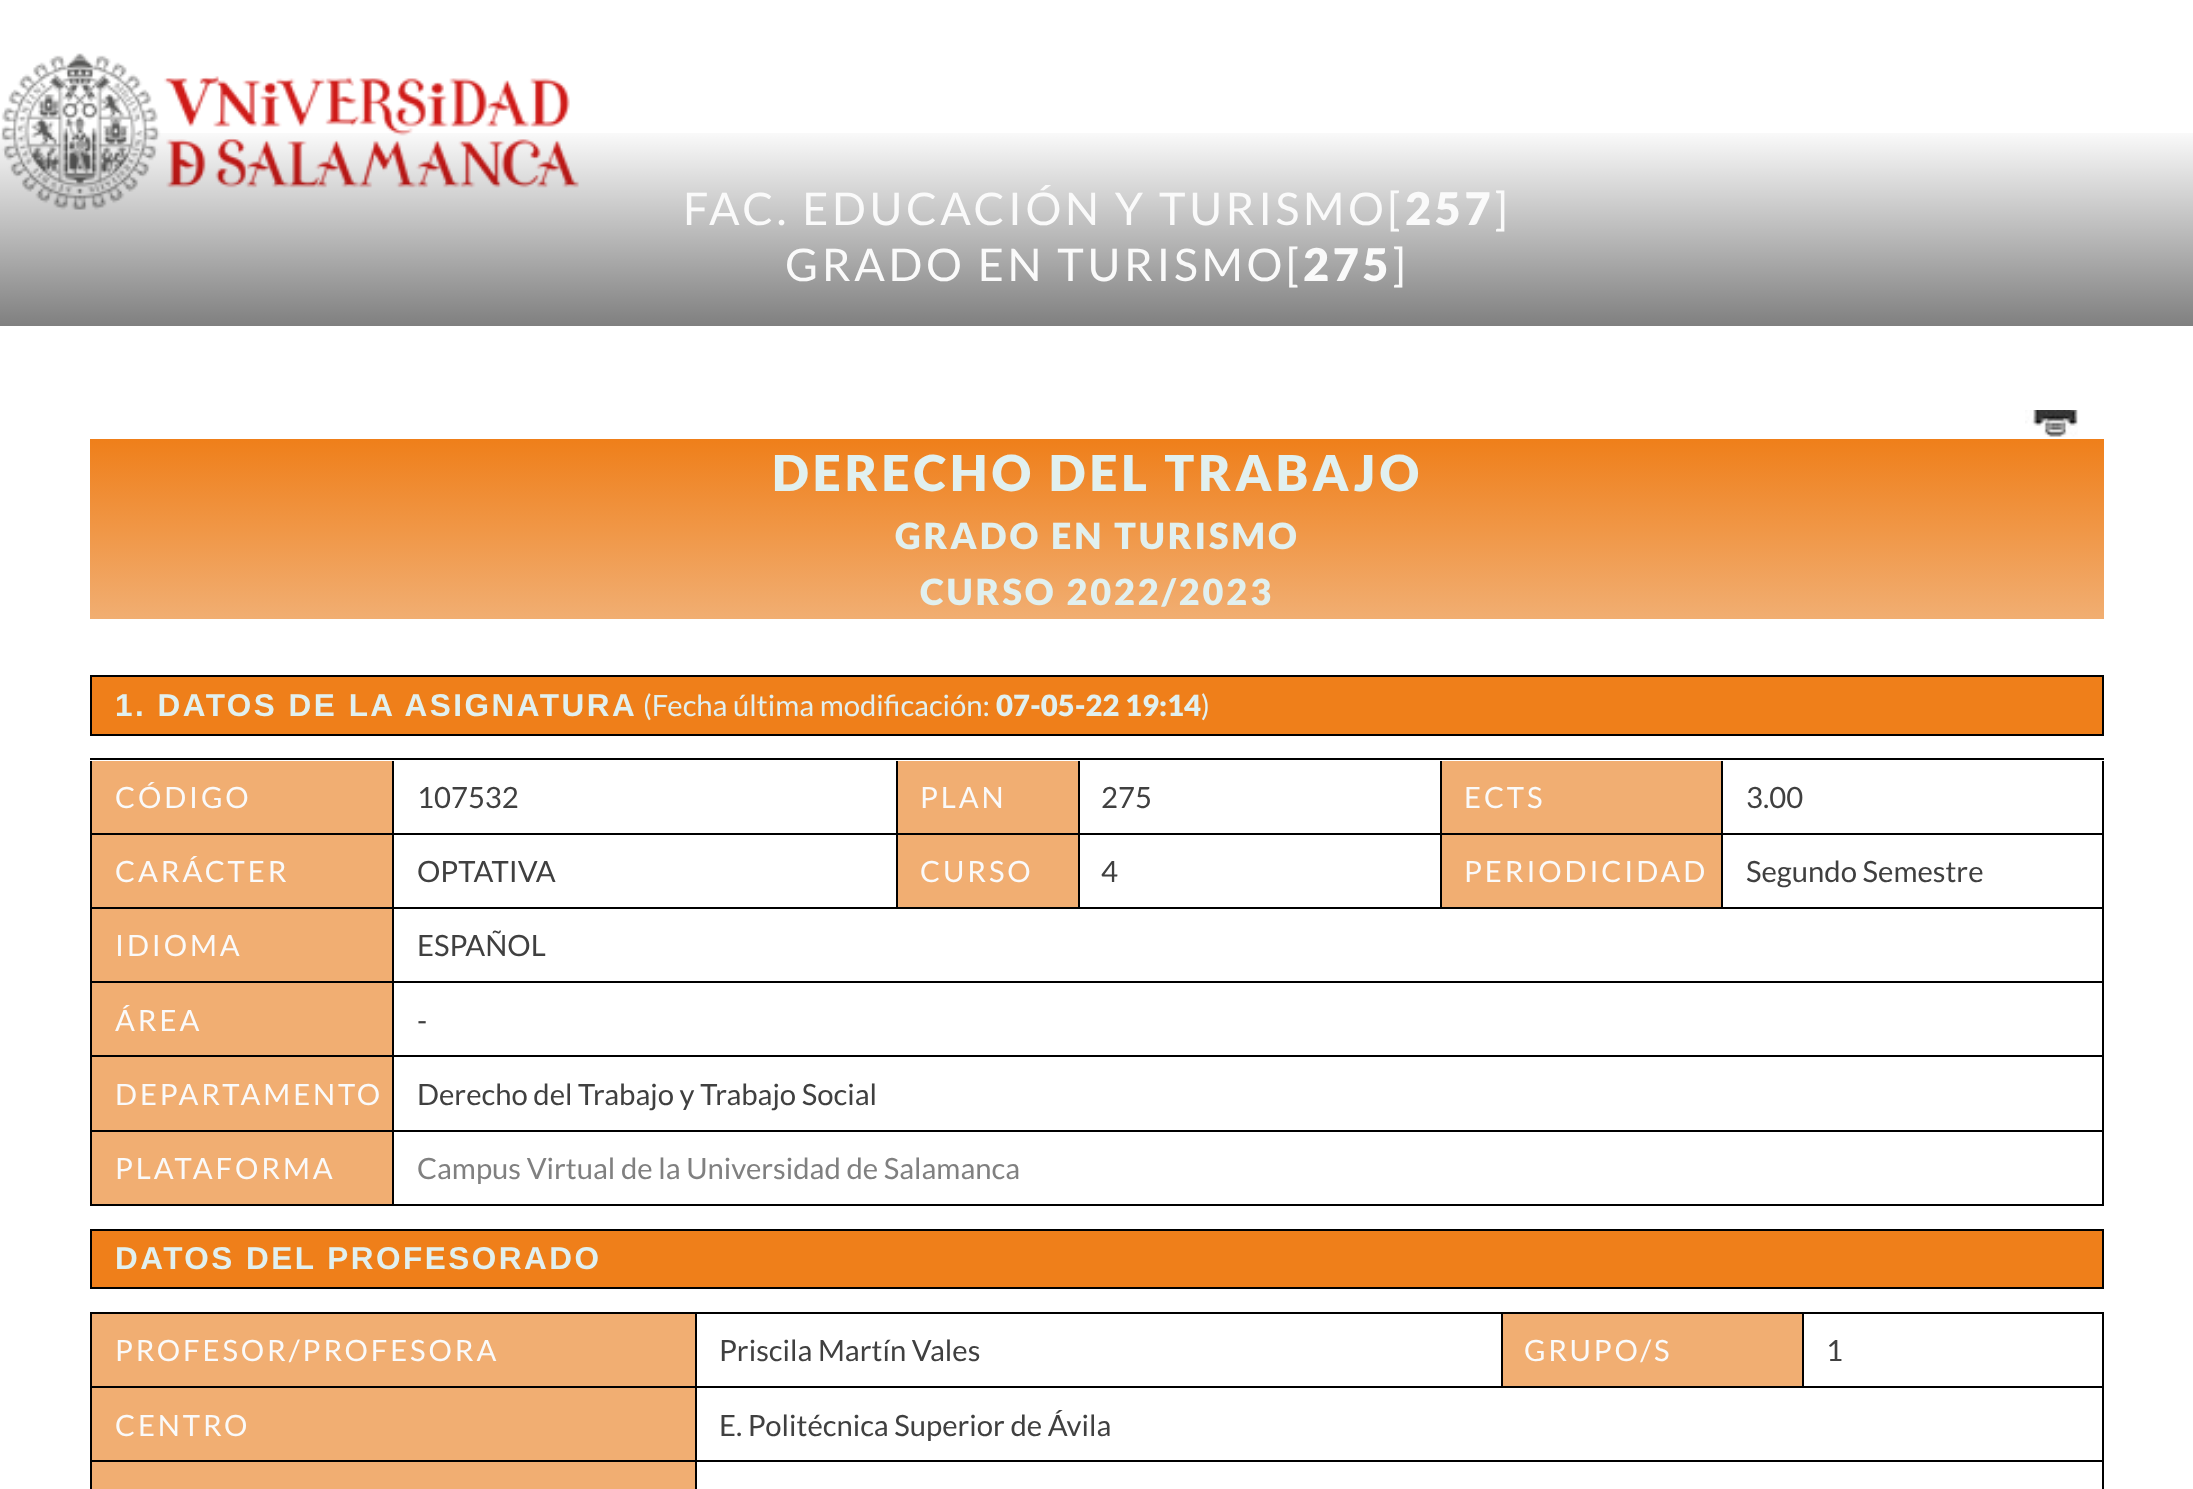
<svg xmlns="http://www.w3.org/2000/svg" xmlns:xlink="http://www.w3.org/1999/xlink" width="2193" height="1489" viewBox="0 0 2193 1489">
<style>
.cls-1{font:45px Lato;letter-spacing:3.6px;fill:#fafafa}
.cls-2{font:900 45px Lato;letter-spacing:3.6px;fill:#fafafa}
.cls-3{font:900 49.5px Lato;letter-spacing:4px;fill:#e1f0ef}
.cls-4{font:900 36px Lato;letter-spacing:2.9px;fill:#e1f0ef}
.cls-5{font:bold 31.5px Liberation Sans;letter-spacing:2.5px;fill:#e1f0ef}
.cls-6{font:29.25px Lato;fill:#e1f0ef}
.cls-7{font:900 29.25px Lato;fill:#e1f0ef}
.cls-8{font:29.25px Lato;letter-spacing:2.9px;fill:#fafafa}
.cls-9{font:29.25px Lato;fill:#404040}
.cls-10{font:29.25px Lato;fill:#808080}
</style>
<defs>
<linearGradient id="g1" gradientUnits="userSpaceOnUse" x1="1097" y1="124" x2="1097" y2="326"><stop offset="0" stop-color="#000000" stop-opacity="0"/><stop offset="1" stop-color="#000000" stop-opacity="0.5"/></linearGradient>
<linearGradient id="g2" gradientUnits="userSpaceOnUse" x1="1097" y1="439" x2="1097" y2="619"><stop offset="0" stop-color="#ef7f1a"/><stop offset="1" stop-color="#f1ae72"/></linearGradient>
</defs>
<rect width="100%" height="100%" fill="#ffffff"/>
<image xlink:href="image0.png" x="1" y="53" width="578" height="157"/>
<rect fill="url(#g1)" x="0" y="133" width="2193" height="193"/>
<image xlink:href="image1.png" x="2025" y="410" width="53" height="27"/>
<rect fill="url(#g2)" x="90" y="439" width="2014" height="180"/>
<rect fill="#ef7f1a" stroke="#000000" stroke-width="2" x="91" y="676" width="2012" height="59"/>
<rect fill="#000000" x="90" y="758" width="2014" height="2"/>
<rect fill="#f1ae72" x="92" y="761" width="300" height="72"/>
<rect fill="#000000" x="90" y="833" width="1631" height="2"/>
<rect fill="#000000" x="90" y="761" width="2" height="74"/>
<rect fill="#000000" x="392" y="761" width="2" height="74"/>
<rect fill="#f1ae72" x="898" y="761" width="180" height="72"/>
<rect fill="#000000" x="896" y="761" width="2" height="74"/>
<rect fill="#000000" x="1078" y="761" width="2" height="74"/>
<rect fill="#f1ae72" x="1442" y="761" width="279" height="72"/>
<rect fill="#000000" x="1440" y="761" width="2" height="74"/>
<rect fill="#000000" x="2102" y="761" width="2" height="445"/>
<rect fill="#000000" x="1721" y="833" width="383" height="2"/>
<rect fill="#000000" x="1721" y="761" width="2" height="74"/>
<rect fill="#f1ae72" x="92" y="835" width="300" height="72"/>
<rect fill="#000000" x="90" y="907" width="2014" height="2"/>
<rect fill="#000000" x="90" y="835" width="2" height="74"/>
<rect fill="#000000" x="392" y="835" width="2" height="74"/>
<rect fill="#f1ae72" x="898" y="835" width="180" height="72"/>
<rect fill="#000000" x="896" y="835" width="2" height="74"/>
<rect fill="#000000" x="1078" y="835" width="2" height="74"/>
<rect fill="#f1ae72" x="1442" y="835" width="279" height="72"/>
<rect fill="#000000" x="1440" y="835" width="2" height="74"/>
<rect fill="#000000" x="1721" y="835" width="2" height="74"/>
<rect fill="#f1ae72" x="92" y="909" width="300" height="72"/>
<rect fill="#000000" x="90" y="981" width="2014" height="2"/>
<rect fill="#000000" x="90" y="909" width="2" height="74"/>
<rect fill="#000000" x="392" y="909" width="2" height="74"/>
<rect fill="#f1ae72" x="92" y="983" width="300" height="147"/>
<rect fill="#000000" x="90" y="1055" width="2014" height="2"/>
<rect fill="#000000" x="90" y="983" width="2" height="75"/>
<rect fill="#000000" x="392" y="983" width="2" height="75"/>
<rect fill="#000000" x="90" y="1130" width="2014" height="2"/>
<rect fill="#000000" x="90" y="1058" width="2" height="74"/>
<rect fill="#000000" x="392" y="1058" width="2" height="74"/>
<rect fill="#f1ae72" x="92" y="1132" width="300" height="72"/>
<rect fill="#000000" x="90" y="1204" width="2014" height="2"/>
<rect fill="#000000" x="90" y="1132" width="2" height="74"/>
<rect fill="#000000" x="392" y="1132" width="2" height="74"/>
<rect fill="#ef7f1a" stroke="#000000" stroke-width="2" x="91" y="1230" width="2012" height="58"/>
<rect fill="#000000" x="90" y="1312" width="2014" height="2"/>
<rect fill="#f1ae72" x="92" y="1314" width="603" height="72"/>
<rect fill="#000000" x="90" y="1386" width="1712" height="2"/>
<rect fill="#000000" x="90" y="1314" width="2" height="74"/>
<rect fill="#000000" x="695" y="1314" width="2" height="74"/>
<rect fill="#f1ae72" x="1503" y="1314" width="299" height="72"/>
<rect fill="#000000" x="1501" y="1314" width="2" height="74"/>
<rect fill="#000000" x="2102" y="1314" width="2" height="175"/>
<rect fill="#000000" x="1802" y="1386" width="302" height="2"/>
<rect fill="#000000" x="1802" y="1314" width="2" height="74"/>
<rect fill="#f1ae72" x="92" y="1388" width="603" height="101"/>
<rect fill="#000000" x="90" y="1460" width="2014" height="2"/>
<rect fill="#000000" x="90" y="1388" width="2" height="101"/>
<rect fill="#000000" x="695" y="1388" width="2" height="101"/>
<text class="cls-1" x="683" y="225">FAC. EDUCACIÓN Y TURISMO[</text>
<text class="cls-2" x="1405" y="225">257</text>
<text class="cls-1" x="1494" y="225">]</text>
<text class="cls-1" x="785" y="281">GRADO EN TURISMO[</text>
<text class="cls-2" x="1303" y="281">275</text>
<text class="cls-1" x="1392" y="281">]</text>
<text class="cls-3" x="772" y="491">DERECHO DEL TRABAJO</text>
<text class="cls-4" x="895" y="549">GRADO EN TURISMO</text>
<text class="cls-4" x="920" y="605">CURSO 2022/2023</text>
<text class="cls-5" x="115" y="716">1. DATOS DE LA ASIGNATURA</text>
<text class="cls-6" x="643" y="716">(Fecha última modificación:</text>
<text class="cls-7" x="996" y="716">07-05-22 19:14</text>
<text class="cls-6" x="1201" y="716">)</text>
<text class="cls-8" x="115" y="808">CÓDIGO</text>
<text class="cls-9" x="417" y="808">107532</text>
<text class="cls-8" x="920" y="808">PLAN</text>
<text class="cls-9" x="1101" y="808">275</text>
<text class="cls-8" x="1464" y="808">ECTS</text>
<text class="cls-9" x="1746" y="808">3.00</text>
<text class="cls-8" x="115" y="882">CARÁCTER</text>
<text class="cls-9" x="417" y="882">OPTATIVA</text>
<text class="cls-8" x="920" y="882">CURSO</text>
<text class="cls-9" x="1101" y="882">4</text>
<text class="cls-8" x="1464" y="882">PERIODICIDAD</text>
<text class="cls-9" x="1746" y="882">Segundo Semestre</text>
<text class="cls-8" x="115" y="956">IDIOMA</text>
<text class="cls-9" x="417" y="956">ESPAÑOL</text>
<text class="cls-8" x="115" y="1031">ÁREA</text>
<text class="cls-9" x="417" y="1031">-</text>
<text class="cls-8" x="115" y="1105">DEPARTAMENTO</text>
<text class="cls-9" x="417" y="1105">Derecho del Trabajo y Trabajo Social</text>
<text class="cls-8" x="115" y="1179">PLATAFORMA</text>
<text class="cls-10" x="417" y="1179">Campus Virtual de la Universidad de Salamanca</text>
<text class="cls-5" x="115" y="1269">DATOS DEL PROFESORADO</text>
<text class="cls-8" x="115" y="1361">PROFESOR/PROFESORA</text>
<text class="cls-9" x="719" y="1361">Priscila Martín Vales</text>
<text class="cls-8" x="1524" y="1361">GRUPO/S</text>
<text class="cls-9" x="1826" y="1361">1</text>
<text class="cls-8" x="115" y="1436">CENTRO</text>
<text class="cls-9" x="719" y="1436">E. Politécnica Superior de Ávila</text>
</svg>
